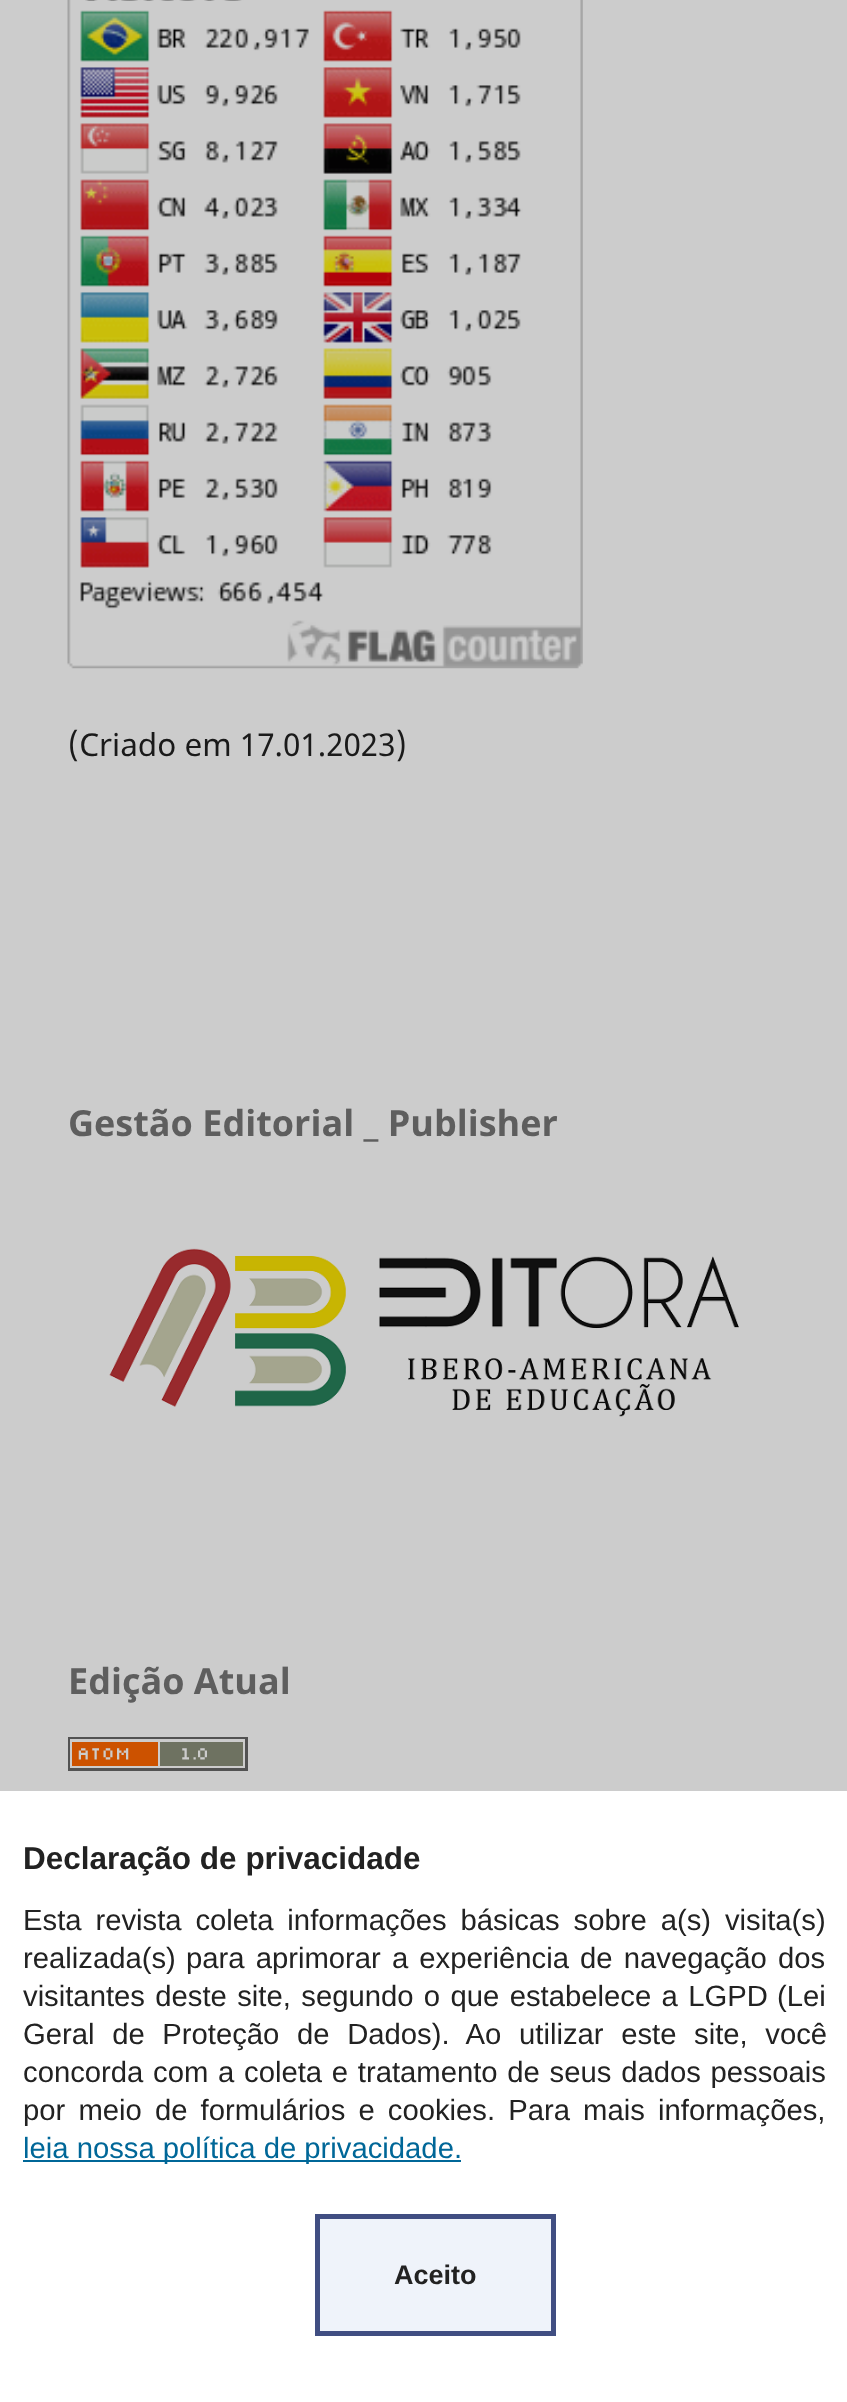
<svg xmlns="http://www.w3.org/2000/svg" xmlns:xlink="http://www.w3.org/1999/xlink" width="847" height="2402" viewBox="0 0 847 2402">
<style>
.cls-1{font:31.5px Noto Sans;fill:#1a1a1a}
.cls-2{font:bold 36px Noto Sans;fill:#5e5e5e}
.cls-3{font:bold 31.5px Liberation Sans;fill:#222222}
.cls-4{font:29.25px Liberation Sans;fill:#222222}
.cls-5{font:29.25px Liberation Sans;fill:#006798}
.cls-6{font:bold 27px Liberation Sans;fill:#222222}
</style>
<rect width="100%" height="100%" fill="#cccccc"/>
<image xlink:href="image0.png" x="67" y="0" width="516" height="669"/>
<image xlink:href="image1.png" x="109" y="1248" width="630" height="169"/>
<image xlink:href="image2.png" x="68" y="1737" width="180" height="34"/>
<rect fill="#ffffff" x="0" y="1791" width="847" height="611"/>
<rect fill="#006798" x="23" y="2160" width="438" height="2"/>
<rect fill="#eff3fa" stroke="#404e82" stroke-width="5" x="317.5" y="2216.5" width="236" height="117"/>
<text class="cls-1" x="68" y="756">(Criado em 17.01.2023)</text>
<text class="cls-2" x="68" y="1136">Gestão Editorial _ Publisher</text>
<text class="cls-2" x="68" y="1694">Edição Atual</text>
<text class="cls-3" x="23" y="1869">Declaração de privacidade</text>
<text class="cls-4"><tspan x="23" y="1930" word-spacing="5.75">Esta revista coleta informações básicas sobre a(s) visita(s)</tspan><tspan x="23" y="1968">realizada(s)</tspan></text>
<text class="cls-4" x="186" y="1968" word-spacing="3">para aprimorar a experiência de navegação dos</text>
<text class="cls-4" x="23" y="2006" word-spacing="2.25">visitantes deste site, segundo o que estabelece a LGPD</text>
<text class="cls-4" x="777" y="2006">(Lei</text>
<text class="cls-4"><tspan x="23" y="2044" word-spacing="9.5">Geral de Proteção de Dados). Ao utilizar este site, você</tspan><tspan x="23" y="2082" word-spacing="1.6">concorda com a coleta e tratamento de seus dados pessoais</tspan><tspan x="23" y="2120" word-spacing="5">por meio de formulários e cookies. Para mais informações,</tspan></text>
<text class="cls-5" x="23" y="2158">leia nossa política de privacidade.</text>
<text class="cls-6" x="394" y="2284">Aceito</text>
</svg>
